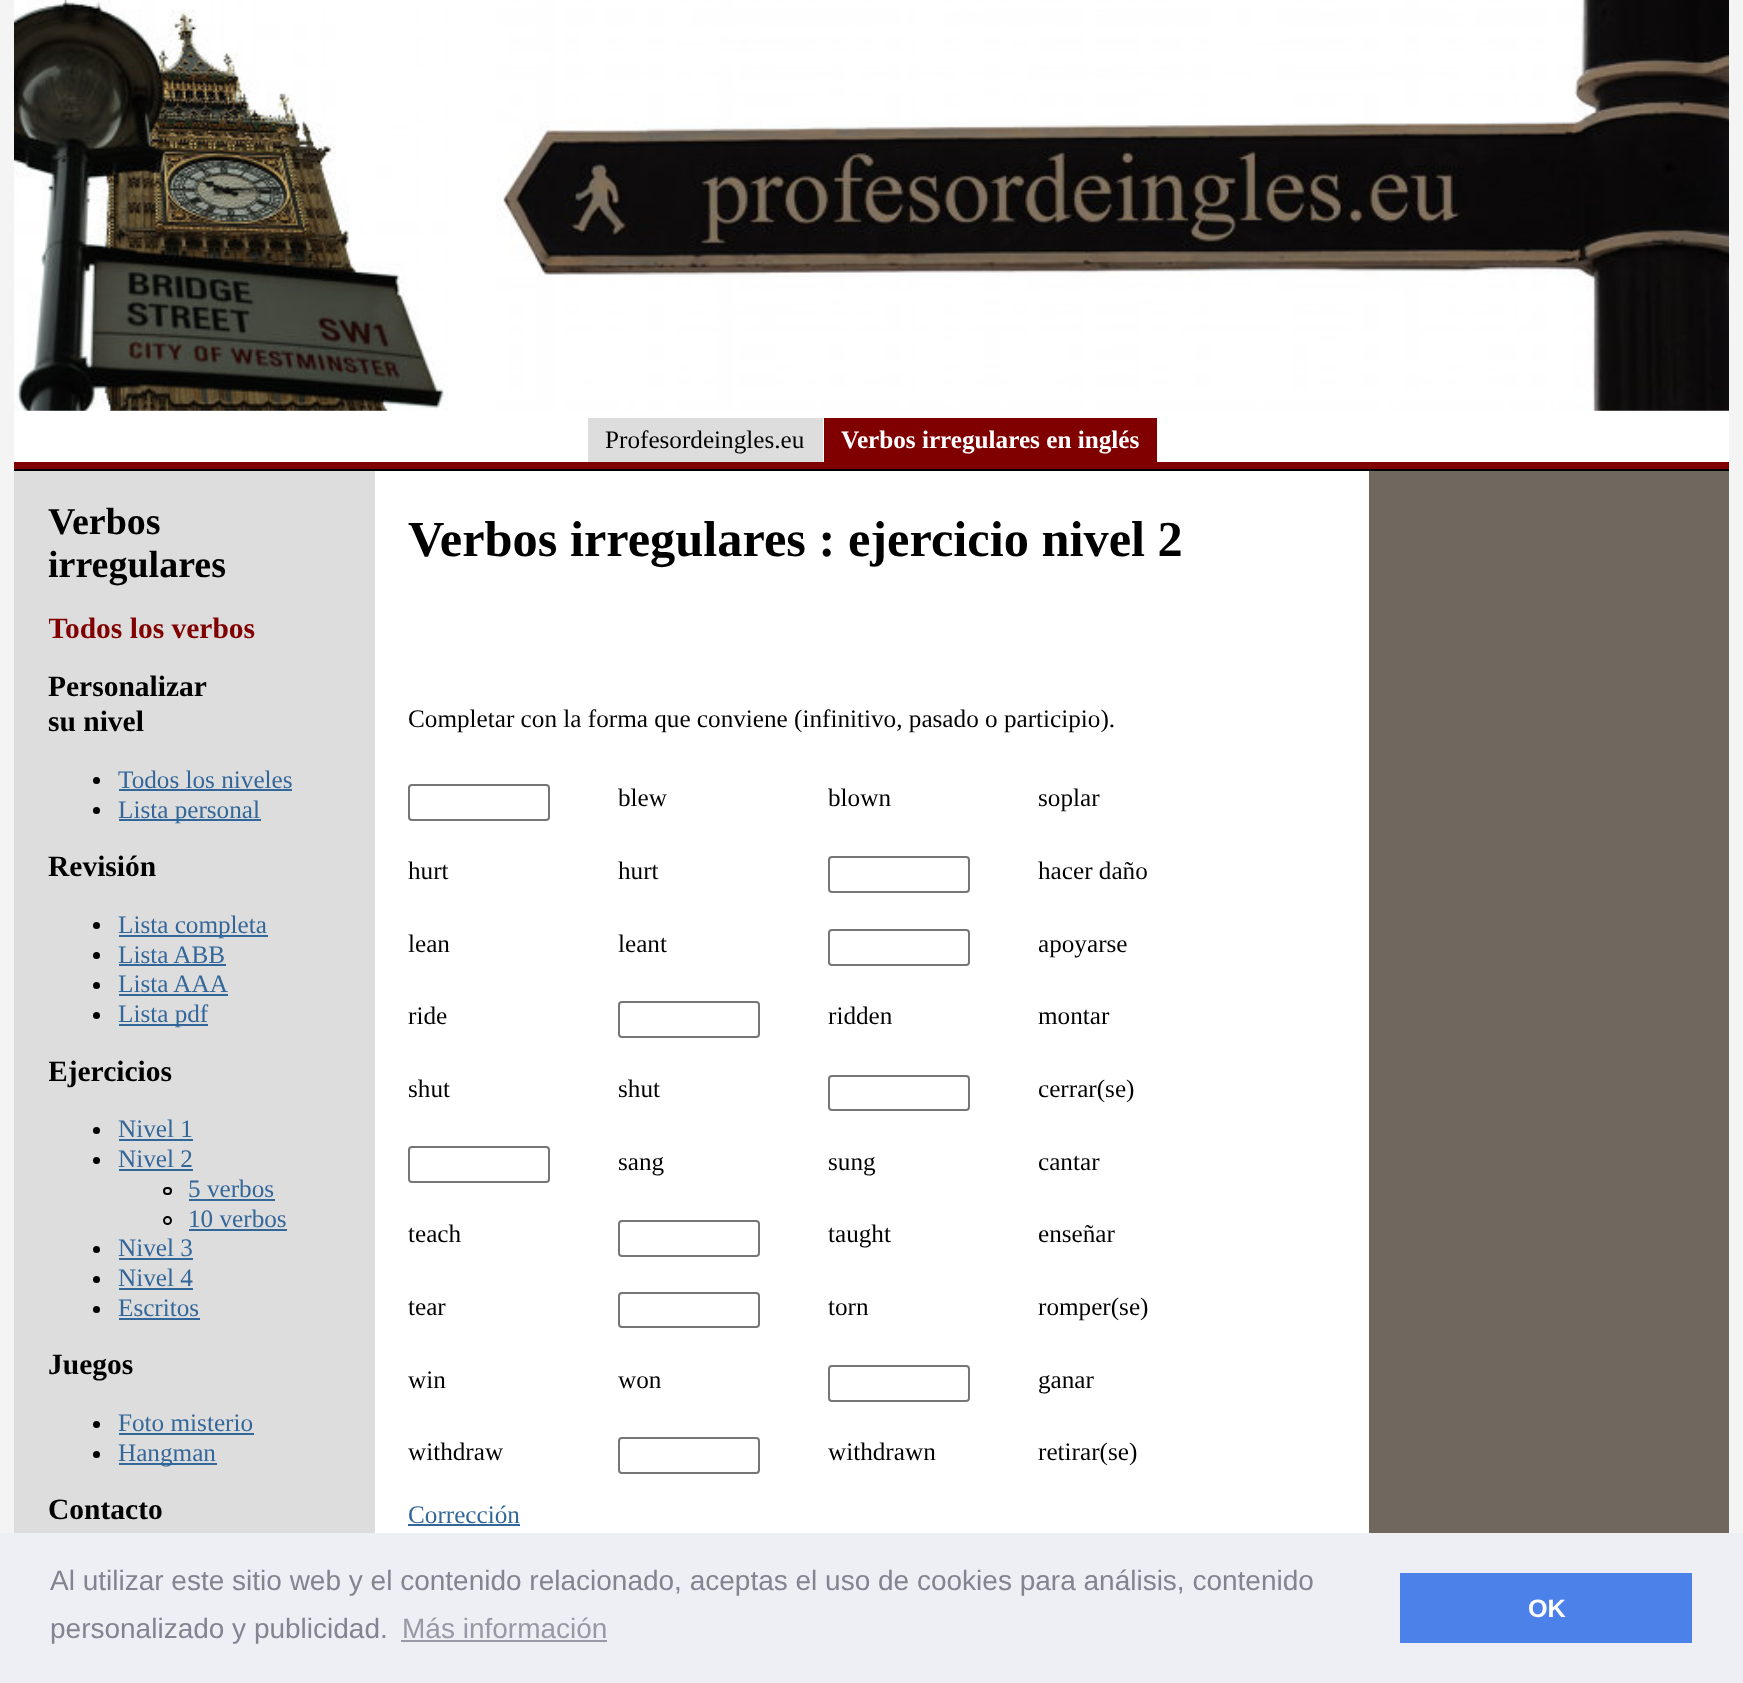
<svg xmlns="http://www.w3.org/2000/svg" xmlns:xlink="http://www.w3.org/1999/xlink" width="1743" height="1683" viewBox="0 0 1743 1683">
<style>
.cls-1{font:25.2px Liberation Serif;fill:#000000}
.cls-2{font:bold 25.2px Liberation Serif;fill:#ffffff}
.cls-3{font:bold 38px Liberation Serif;fill:#000000}
.cls-4{font:bold 29.5px Liberation Serif;fill:#800000}
.cls-5{font:bold 29.5px Liberation Serif;fill:#000000}
.cls-6{font:25.2px Liberation Serif;fill:#336699}
.cls-7{font:bold 50.4px Liberation Serif;fill:#000000}
.cls-8{font:28px Liberation Sans;fill:#838391}
.cls-9{font:28px Liberation Sans;fill:#9899a5}
.cls-10{font:bold 25.2px Liberation Sans;fill:#ffffff}
</style>
<defs>
<clipPath id="clip1"><rect x="49" y="471" width="291" height="1162"/></clipPath>
</defs>
<rect width="100%" height="100%" fill="#f4f4f4"/>
<rect fill="#ffffff" x="14" y="0" width="1715" height="462"/>
<rect fill="#000000" x="14" y="469" width="1715" height="2"/>
<image xlink:href="image0.png" x="14" y="0" width="434" height="411"/>
<image xlink:href="image1.png" x="496" y="0" width="1233" height="411"/>
<rect fill="#800000" x="14" y="462" width="1715" height="7"/>
<rect fill="#dddddd" x="588" y="418" width="235" height="44"/>
<rect fill="#800000" x="824" y="418" width="333" height="44"/>
<rect fill="#70675e" x="1369" y="471" width="360" height="1062"/>
<rect fill="#ffffff" x="375" y="471" width="994" height="1062"/>
<rect fill="#dddddd" x="14" y="471" width="361" height="1062"/>
<circle fill="#000000" cx="96.5" cy="780.5" r="3.5"/>
<rect fill="#336699" x="119" y="789" width="173" height="2"/>
<circle fill="#000000" cx="96.5" cy="810.5" r="3.5"/>
<rect fill="#336699" x="119" y="819" width="142" height="2"/>
<circle fill="#000000" cx="96.5" cy="925.5" r="3.5"/>
<rect fill="#336699" x="119" y="935" width="149" height="2"/>
<circle fill="#000000" cx="96.5" cy="955.5" r="3.5"/>
<rect fill="#336699" x="119" y="964" width="107" height="2"/>
<circle fill="#000000" cx="96.5" cy="985.5" r="3.5"/>
<rect fill="#336699" x="119" y="994" width="109" height="2"/>
<circle fill="#000000" cx="96.5" cy="1015.5" r="3.5"/>
<rect fill="#336699" x="119" y="1024" width="89" height="2"/>
<circle fill="#000000" cx="96.5" cy="1130.5" r="3.5"/>
<rect fill="#336699" x="119" y="1139" width="74" height="2"/>
<circle fill="#000000" cx="96.5" cy="1160.5" r="3.5"/>
<rect fill="#336699" x="119" y="1169" width="74" height="2"/>
<rect fill="none" stroke="#000000" stroke-width="2" x="164" y="1188" width="7" height="6" rx="3"/>
<rect fill="#336699" x="189" y="1199" width="86" height="2"/>
<circle fill="none" stroke="#000000" stroke-width="2" cx="167.5" cy="1220.5" r="3.5"/>
<rect fill="#336699" x="189" y="1229" width="98" height="2"/>
<circle fill="#000000" cx="96.5" cy="1249.5" r="3.5"/>
<rect fill="#336699" x="119" y="1258" width="74" height="2"/>
<circle fill="#000000" cx="96.5" cy="1279.5" r="3.5"/>
<rect fill="#336699" x="119" y="1288" width="74" height="2"/>
<circle fill="#000000" cx="96.5" cy="1309.5" r="3.5"/>
<rect fill="#336699" x="119" y="1318" width="81" height="2"/>
<circle fill="#000000" cx="96.5" cy="1424.5" r="3.5"/>
<rect fill="#336699" x="119" y="1433" width="135" height="2"/>
<circle fill="#000000" cx="96.5" cy="1454.5" r="3.5"/>
<rect fill="#336699" x="119" y="1463" width="98" height="2"/>
<rect fill="none" stroke="#767676" stroke-width="2" x="409" y="785" width="140" height="35" rx="3"/>
<rect fill="none" stroke="#767676" stroke-width="2" x="829" y="857" width="140" height="35" rx="3"/>
<rect fill="none" stroke="#767676" stroke-width="2" x="829" y="930" width="140" height="35" rx="3"/>
<rect fill="none" stroke="#767676" stroke-width="2" x="619" y="1002" width="140" height="35" rx="3"/>
<rect fill="none" stroke="#767676" stroke-width="2" x="829" y="1076" width="140" height="34" rx="3"/>
<rect fill="none" stroke="#767676" stroke-width="2" x="409" y="1147" width="140" height="35" rx="3"/>
<rect fill="none" stroke="#767676" stroke-width="2" x="619" y="1221" width="140" height="35" rx="3"/>
<rect fill="none" stroke="#767676" stroke-width="2" x="619" y="1293" width="140" height="34" rx="3"/>
<rect fill="none" stroke="#767676" stroke-width="2" x="829" y="1366" width="140" height="35" rx="3"/>
<rect fill="none" stroke="#767676" stroke-width="2" x="619" y="1438" width="140" height="35" rx="3"/>
<rect fill="#336699" x="408" y="1524" width="112" height="2"/>
<rect fill="#edeff5" x="0" y="1533" width="1743" height="150"/>
<rect fill="#9899a5" x="401" y="1640" width="206" height="2"/>
<rect fill="#4b81e8" x="1400" y="1573" width="292" height="70"/>
<text class="cls-1" x="605" y="448">Profesordeingles.eu</text>
<text class="cls-2" x="841" y="448">Verbos irregulares en inglés</text>
<text class="cls-3"><tspan x="48" y="534">Verbos</tspan><tspan x="48" y="577">irregulares</tspan></text>
<g clip-path="url(#clip1)">
<text class="cls-4" x="48" y="638">Todos los verbos</text>
</g>
<text class="cls-5"><tspan x="48" y="696">Personalizar</tspan><tspan x="48" y="731">su nivel</tspan></text>
<text class="cls-6"><tspan x="118" y="788">Todos los niveles</tspan><tspan x="118" y="818">Lista personal</tspan></text>
<text class="cls-5" x="48" y="876">Revisión</text>
<text class="cls-6"><tspan x="118" y="933">Lista completa</tspan><tspan x="118" y="963">Lista ABB</tspan><tspan x="118" y="992">Lista AAA</tspan><tspan x="118" y="1022">Lista pdf</tspan></text>
<g clip-path="url(#clip1)">
<text class="cls-5" x="48" y="1081">Ejercicios</text>
</g>
<text class="cls-6"><tspan x="118" y="1137">Nivel 1</tspan><tspan x="118" y="1167">Nivel 2</tspan></text>
<text class="cls-6"><tspan x="188" y="1197">5 verbos</tspan><tspan x="188" y="1227">10 verbos</tspan></text>
<text class="cls-6"><tspan x="118" y="1256">Nivel 3</tspan><tspan x="118" y="1286">Nivel 4</tspan><tspan x="118" y="1316">Escritos</tspan></text>
<text class="cls-5" x="48" y="1374">Juegos</text>
<text class="cls-6"><tspan x="118" y="1431">Foto misterio</tspan><tspan x="118" y="1461">Hangman</tspan></text>
<text class="cls-5" x="48" y="1519">Contacto</text>
<text class="cls-7" x="408" y="556">Verbos irregulares : ejercicio nivel 2</text>
<text class="cls-1" x="408" y="727">Completar con la forma que conviene (infinitivo, pasado o participio).</text>
<text class="cls-1" x="618" y="806">blew</text>
<text class="cls-1" x="828" y="806">blown</text>
<text class="cls-1" x="1038" y="806">soplar</text>
<text class="cls-1" x="408" y="879">hurt</text>
<text class="cls-1" x="618" y="879">hurt</text>
<text class="cls-1" x="1038" y="879">hacer daño</text>
<text class="cls-1" x="408" y="952">lean</text>
<text class="cls-1" x="618" y="952">leant</text>
<text class="cls-1" x="1038" y="952">apoyarse</text>
<text class="cls-1" x="408" y="1024">ride</text>
<text class="cls-1" x="828" y="1024">ridden</text>
<text class="cls-1" x="1038" y="1024">montar</text>
<text class="cls-1" x="408" y="1097">shut</text>
<text class="cls-1" x="618" y="1097">shut</text>
<text class="cls-1" x="1038" y="1097">cerrar(se)</text>
<text class="cls-1" x="618" y="1170">sang</text>
<text class="cls-1" x="828" y="1170">sung</text>
<text class="cls-1" x="1038" y="1170">cantar</text>
<text class="cls-1" x="408" y="1242">teach</text>
<text class="cls-1" x="828" y="1242">taught</text>
<text class="cls-1" x="1038" y="1242">enseñar</text>
<text class="cls-1" x="408" y="1315">tear</text>
<text class="cls-1" x="828" y="1315">torn</text>
<text class="cls-1" x="1038" y="1315">romper(se)</text>
<text class="cls-1" x="408" y="1388">win</text>
<text class="cls-1" x="618" y="1388">won</text>
<text class="cls-1" x="1038" y="1388">ganar</text>
<text class="cls-1" x="408" y="1460">withdraw</text>
<text class="cls-1" x="828" y="1460">withdrawn</text>
<text class="cls-1" x="1038" y="1460">retirar(se)</text>
<text class="cls-6" x="408" y="1523">Corrección</text>
<text class="cls-8"><tspan x="50" y="1590">Al utilizar este sitio web y el contenido relacionado, aceptas el uso de cookies para análisis, contenido</tspan><tspan x="50" y="1638">personalizado y publicidad.</tspan></text>
<text class="cls-9" x="402" y="1638">Más información</text>
<text class="cls-10" x="1528" y="1617">OK</text>
</svg>
